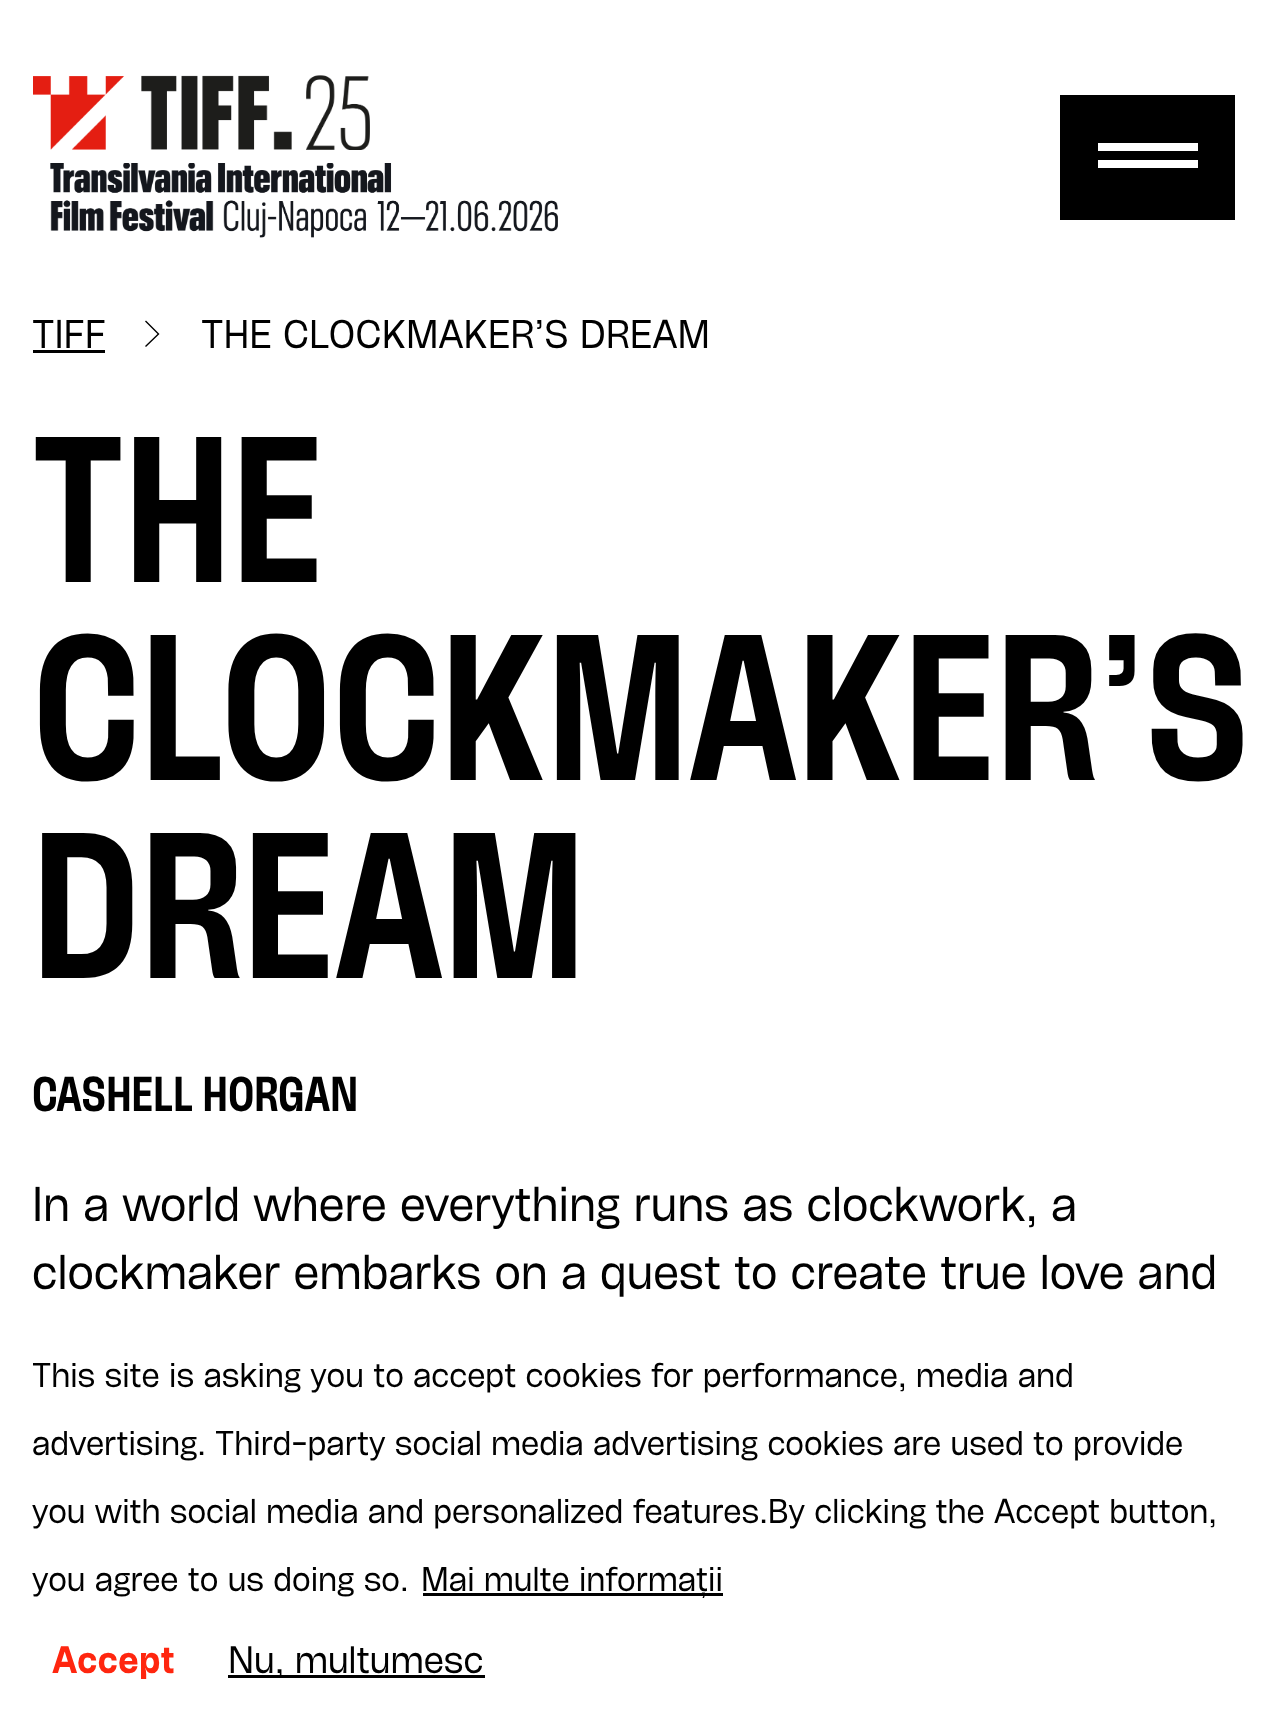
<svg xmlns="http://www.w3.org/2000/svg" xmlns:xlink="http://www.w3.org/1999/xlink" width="1266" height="1721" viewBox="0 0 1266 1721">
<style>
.cls-1{font:35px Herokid;fill:#000000}
.cls-2{font:600 180px Herokid;fill:#000000}
.cls-3{font:600 42.5px Herokid;fill:#000000}
.cls-4{font:42.5px Herokid;fill:#000000}
.cls-5{font:30px Herokid;fill:#000000}
.cls-6{font:600 33.25px 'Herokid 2';fill:#ff260f}
.cls-7{font:33.25px Herokid;fill:#000000}
</style>
<rect width="100%" height="100%" fill="#ffffff"/>
<image xlink:href="image0.png" x="33" y="75" width="337" height="75"/>
<image xlink:href="image1.png" x="50" y="163" width="508" height="75"/>
<rect fill="#000000" x="1060" y="95" width="175" height="125"/>
<rect fill="#ffffff" x="1098" y="143" width="100" height="8"/>
<rect fill="#ffffff" x="1098" y="160" width="100" height="8"/>
<rect fill="#000000" x="33" y="350" width="72" height="3"/>
<path fill="none" stroke="#000000" stroke-width="1.4" d="M145.5 321L158.5 334L145.5 346.5"/>
<rect fill="#000000" x="423" y="1593" width="300" height="3"/>
<rect fill="#000000" x="228" y="1675" width="257" height="3"/>
<text class="cls-1" x="32" y="348">TIFF</text>
<text class="cls-1" x="201" y="348">THE CLOCKMAKER’S DREAM</text>
<text class="cls-2"><tspan x="32" y="582">THE</tspan><tspan x="32" y="780">CLOCKMAKER’S</tspan><tspan x="32" y="978">DREAM</tspan></text>
<text class="cls-3" x="32" y="1111">CASHELL HORGAN</text>
<text class="cls-4"><tspan x="32" y="1221">In a world where everything runs as clockwork, a</tspan><tspan x="32" y="1289">clockmaker embarks on a quest to create true love and</tspan></text>
<text class="cls-5" x="32" y="1387">This site is asking you to accept cookies for performance, media and</text>
<text class="cls-5" x="32" y="1455">advertising. Third-party social media advertising cookies are used to provide</text>
<text class="cls-5" x="32" y="1523">you with social media and personalized features.By clicking the Accept button,</text>
<text class="cls-5" x="32" y="1591">you agree to us doing so.</text>
<text class="cls-5" x="421" y="1591">Mai multe informații</text>
<text class="cls-6" x="52" y="1673">Accept</text>
<text class="cls-7" x="228" y="1673">Nu, multumesc</text>
</svg>
